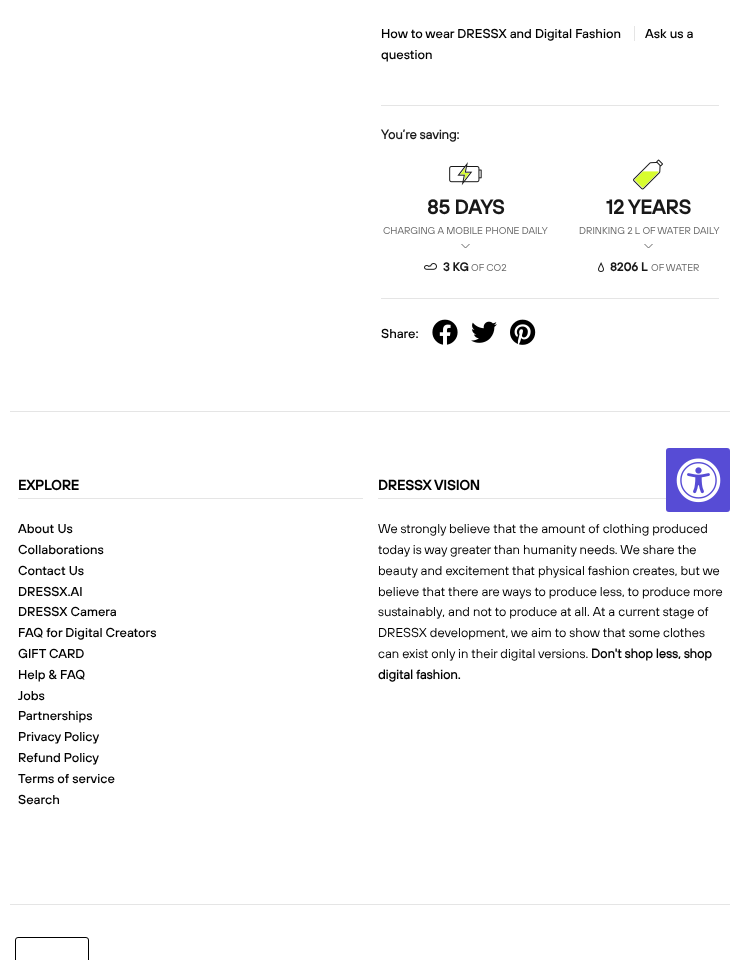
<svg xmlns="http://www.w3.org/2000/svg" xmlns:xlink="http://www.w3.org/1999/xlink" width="740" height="960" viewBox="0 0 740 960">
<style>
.cls-1{font:500 13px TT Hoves;fill:#000000}
.cls-2{font:bold 13px TT Hoves;fill:#181818}
.cls-3{font:bold 20px 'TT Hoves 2';fill:#181818}
.cls-4{font:10px TT Hoves;fill:#686868}
.cls-5{font:bold 12px 'TT Hoves 2';fill:#181818}
.cls-6{font:bold 14px 'TT Hoves 2';fill:#000000}
.cls-7{font:13px TT Hoves;fill:#000000}
.cls-8{font:bold 13px TT Hoves;fill:#000000}
</style>
<rect width="100%" height="100%" fill="#ffffff"/>
<rect fill="#e5e5e5" x="634" y="26" width="1" height="15"/>
<rect fill="#e5e5e5" x="381" y="105" width="338" height="1"/>
<image xlink:href="image0.png" x="449" y="162" width="33" height="24"/>
<path fill="none" stroke="#686868" d="M461.5 244L465.5 248L469.5 244"/>
<image xlink:href="image1.png" x="424" y="263" width="13" height="7"/>
<image xlink:href="image2.png" x="633" y="159" width="30" height="31"/>
<path fill="none" stroke="#686868" d="M644.5 244L648.5 248L652.5 244"/>
<image xlink:href="image3.png" x="598" y="262" width="6" height="10"/>
<rect fill="#e5e5e5" x="381" y="298" width="338" height="1"/>
<image xlink:href="image4.png" x="432" y="319" width="26" height="26"/>
<image xlink:href="image5.png" x="471" y="321" width="26" height="22"/>
<image xlink:href="image6.png" x="510" y="319" width="26" height="26"/>
<rect fill="#e5e5e5" x="10" y="411" width="720" height="1"/>
<rect fill="#e5e5e5" x="18" y="498" width="345" height="1"/>
<rect fill="#e5e5e5" x="378" y="498" width="288" height="1"/>
<rect fill="#e5e5e5" x="10" y="904" width="720" height="1"/>
<rect fill="none" stroke="#000000" x="15.5" y="937.5" width="73" height="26" rx="2.5"/>
<rect fill="#574cd5" x="666" y="448" width="64" height="64" rx="3"/>
<image xlink:href="image7.png" x="676" y="458" width="45" height="45"/>
<text class="cls-1" x="381" y="38">How to wear DRESSX and Digital Fashion</text>
<text class="cls-1" x="645" y="38">Ask us a</text>
<text class="cls-1" x="381" y="59">question</text>
<text class="cls-2" x="381" y="139">You’re saving:</text>
<text class="cls-3" x="427" y="214">85 DAYS</text>
<text class="cls-4" x="383" y="234">CHARGING A MOBILE PHONE DAILY</text>
<text class="cls-5" x="443" y="271">3 KG</text>
<text class="cls-4" x="471" y="271">OF CO2</text>
<text class="cls-3" x="606" y="214">12 YEARS</text>
<text class="cls-4" x="579" y="234">DRINKING 2 L OF WATER DAILY</text>
<text class="cls-5" x="610" y="271">8206 L</text>
<text class="cls-4" x="651" y="271">OF WATER</text>
<text class="cls-1" x="381" y="338">Share:</text>
<text class="cls-6" x="18" y="490">EXPLORE</text>
<text class="cls-1"><tspan x="18" y="533">About Us</tspan><tspan x="18" y="554">Collaborations</tspan><tspan x="18" y="575">Contact Us</tspan><tspan x="18" y="596">DRESSX.AI</tspan><tspan x="18" y="616">DRESSX Camera</tspan><tspan x="18" y="637">FAQ for Digital Creators</tspan><tspan x="18" y="658">GIFT CARD</tspan><tspan x="18" y="679">Help &amp; FAQ</tspan><tspan x="18" y="700">Jobs</tspan><tspan x="18" y="720">Partnerships</tspan><tspan x="18" y="741">Privacy Policy</tspan><tspan x="18" y="762">Refund Policy</tspan><tspan x="18" y="783">Terms of service</tspan><tspan x="18" y="804">Search</tspan></text>
<text class="cls-6" x="378" y="490">DRESSX VISION</text>
<text class="cls-7"><tspan x="378" y="533">We strongly believe that the amount of clothing produced</tspan><tspan x="378" y="554">today is way greater than humanity needs. We share the</tspan><tspan x="378" y="575">beauty and excitement that physical fashion creates, but we</tspan><tspan x="378" y="596">believe that there are ways to produce less, to produce more</tspan><tspan x="378" y="616">sustainably, and not to produce at all. At a current stage of</tspan><tspan x="378" y="637">DRESSX development, we aim to show that some clothes</tspan><tspan x="378" y="658">can exist only in their digital versions.</tspan></text>
<text class="cls-8" x="591" y="658">Don't shop less, shop</text>
<text class="cls-8" x="378" y="679">digital fashion.</text>
</svg>
